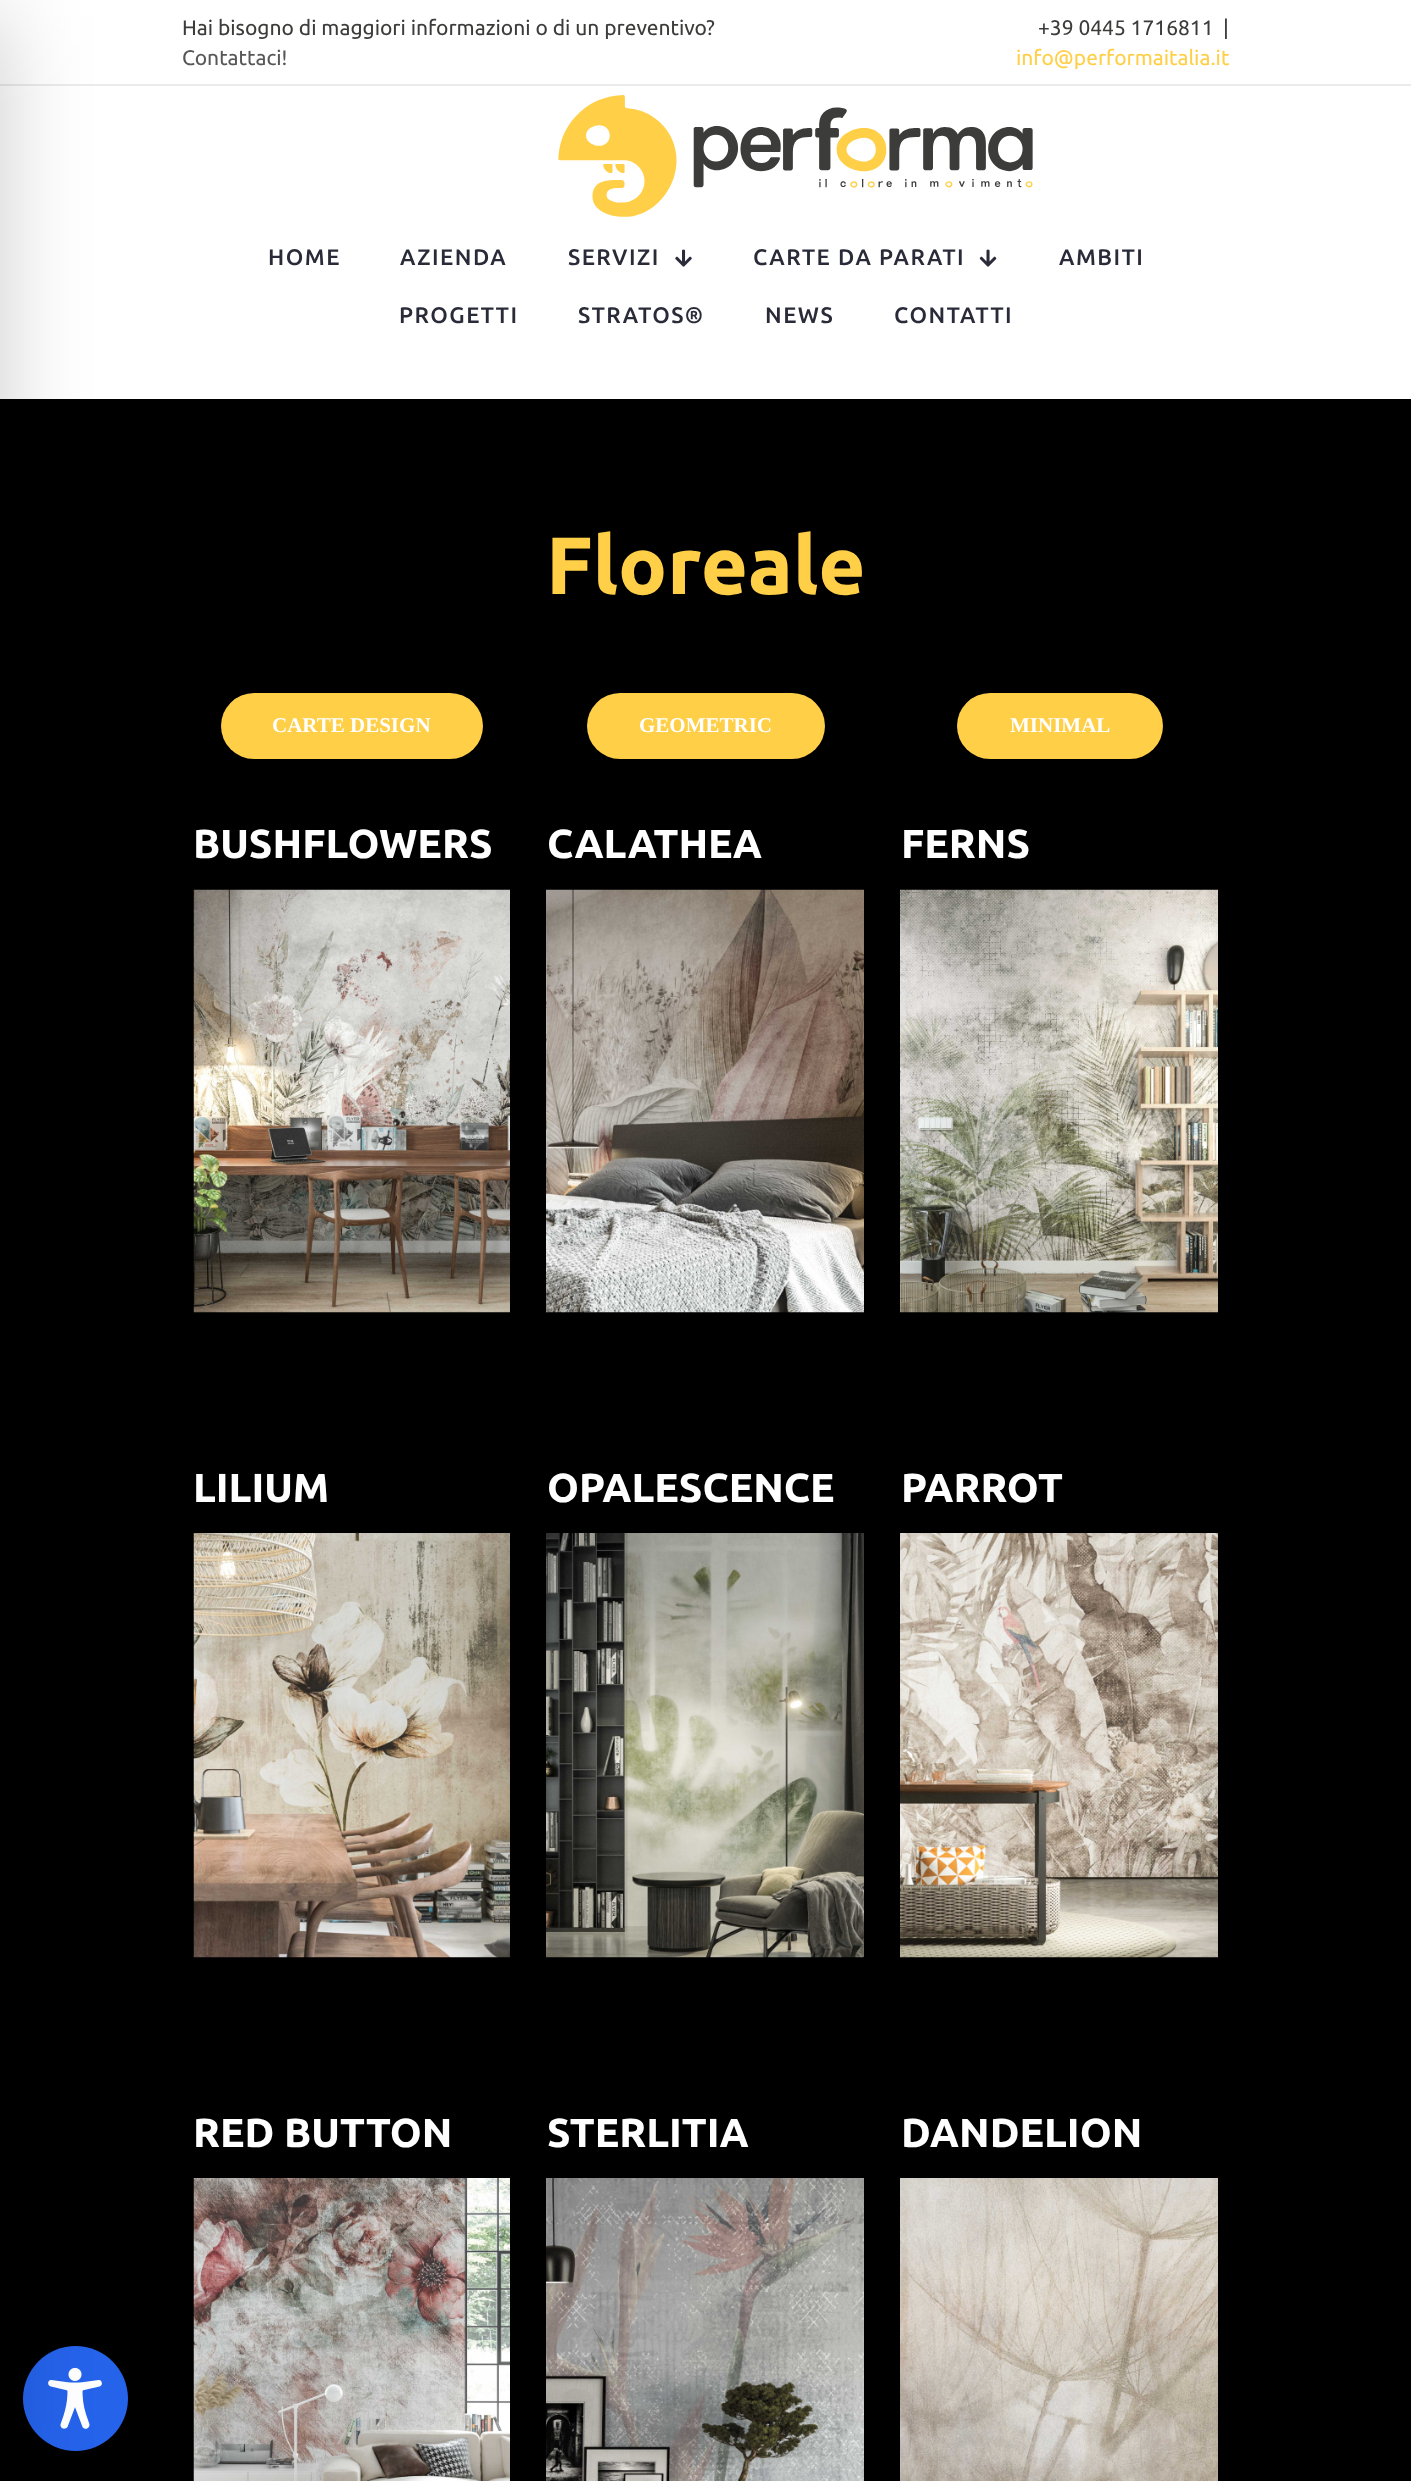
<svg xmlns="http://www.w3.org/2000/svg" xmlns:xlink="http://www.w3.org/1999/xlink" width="1411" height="2481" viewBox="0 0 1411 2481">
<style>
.cls-1{font:21px Ubuntu;fill:#3c3c3b}
.cls-2{font:21px Ubuntu;fill:#575757}
.cls-3{font:21px Ubuntu;fill:#ffcf47}
.cls-4{font:500 22.5px Ubuntu;letter-spacing:1.5px;fill:#2a2b39}
.cls-5{font:bold 81px Ubuntu;fill:#ffcf47}
.cls-6{font:bold 21px Liberation Serif;fill:#ffffff}
.cls-7{font:bold 40.5px Ubuntu;fill:#ffffff}
</style>
<rect width="100%" height="100%" fill="#ffffff"/>
<rect fill="#ebebeb" x="0" y="84" width="1411" height="2"/>
<rect fill="#000000" x="0" y="399" width="1411" height="2082"/>
<circle fill="#2563eb" cx="75.5" cy="2398.5" r="52.5"/>
<image xlink:href="image12.png" x="48" y="2367" width="54" height="62"/>
<rect fill="#000000" fill-opacity="0.2" filter="blur(45px)" x="-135" y="15" width="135" height="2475"/>
<image xlink:href="image0.png" x="558" y="95" width="475" height="122"/>
<image xlink:href="image1.png" x="675" y="249" width="17" height="18"/>
<image xlink:href="image2.png" x="979" y="249" width="18" height="18"/>
<rect fill="#ffcf47" x="221" y="693" width="262" height="66" rx="33"/>
<rect fill="#ffcf47" x="587" y="693" width="238" height="66" rx="33"/>
<rect fill="#ffcf47" x="957" y="693" width="206" height="66" rx="33"/>
<image xlink:href="image3.png" x="193" y="889" width="317" height="424"/>
<image xlink:href="image4.png" x="546" y="889" width="318" height="424"/>
<image xlink:href="image5.png" x="900" y="889" width="318" height="424"/>
<image xlink:href="image6.png" x="193" y="1533" width="317" height="425"/>
<image xlink:href="image7.png" x="546" y="1533" width="318" height="425"/>
<image xlink:href="image8.png" x="900" y="1533" width="318" height="425"/>
<image xlink:href="image9.png" x="193" y="2178" width="317" height="303"/>
<image xlink:href="image10.png" x="546" y="2178" width="318" height="303"/>
<image xlink:href="image11.png" x="900" y="2178" width="318" height="303"/>
<text class="cls-1" x="182" y="35">Hai bisogno di maggiori informazioni o di un preventivo?</text>
<text class="cls-2" x="182" y="65">Contattaci!</text>
<text class="cls-1" x="1038" y="35">+39 0445 1716811</text>
<text class="cls-1" x="1223" y="35">|</text>
<text class="cls-3" x="1016" y="65">info@performaitalia.it</text>
<text class="cls-4" x="268" y="265">HOME</text>
<text class="cls-4" x="400" y="265">AZIENDA</text>
<text class="cls-4" x="568" y="265">SERVIZI</text>
<text class="cls-4" x="753" y="265">CARTE DA PARATI</text>
<text class="cls-4" x="1059" y="265">AMBITI</text>
<text class="cls-4" x="399" y="323">PROGETTI</text>
<text class="cls-4" x="578" y="323">STRATOS®</text>
<text class="cls-4" x="765" y="323">NEWS</text>
<text class="cls-4" x="894" y="323">CONTATTI</text>
<text class="cls-5" x="546" y="594">Floreale</text>
<text class="cls-6" x="272" y="732">CARTE DESIGN</text>
<text class="cls-6" x="639" y="732">GEOMETRIC</text>
<text class="cls-6" x="1010" y="732">MINIMAL</text>
<text class="cls-7" x="193" y="858">BUSHFLOWERS</text>
<text class="cls-7" x="547" y="858">CALATHEA</text>
<text class="cls-7" x="901" y="858">FERNS</text>
<text class="cls-7" x="193" y="1502">LILIUM</text>
<text class="cls-7" x="547" y="1502">OPALESCENCE</text>
<text class="cls-7" x="901" y="1502">PARROT</text>
<text class="cls-7" x="193" y="2147">RED BUTTON</text>
<text class="cls-7" x="547" y="2147">STERLITIA</text>
<text class="cls-7" x="901" y="2147">DANDELION</text>
</svg>
